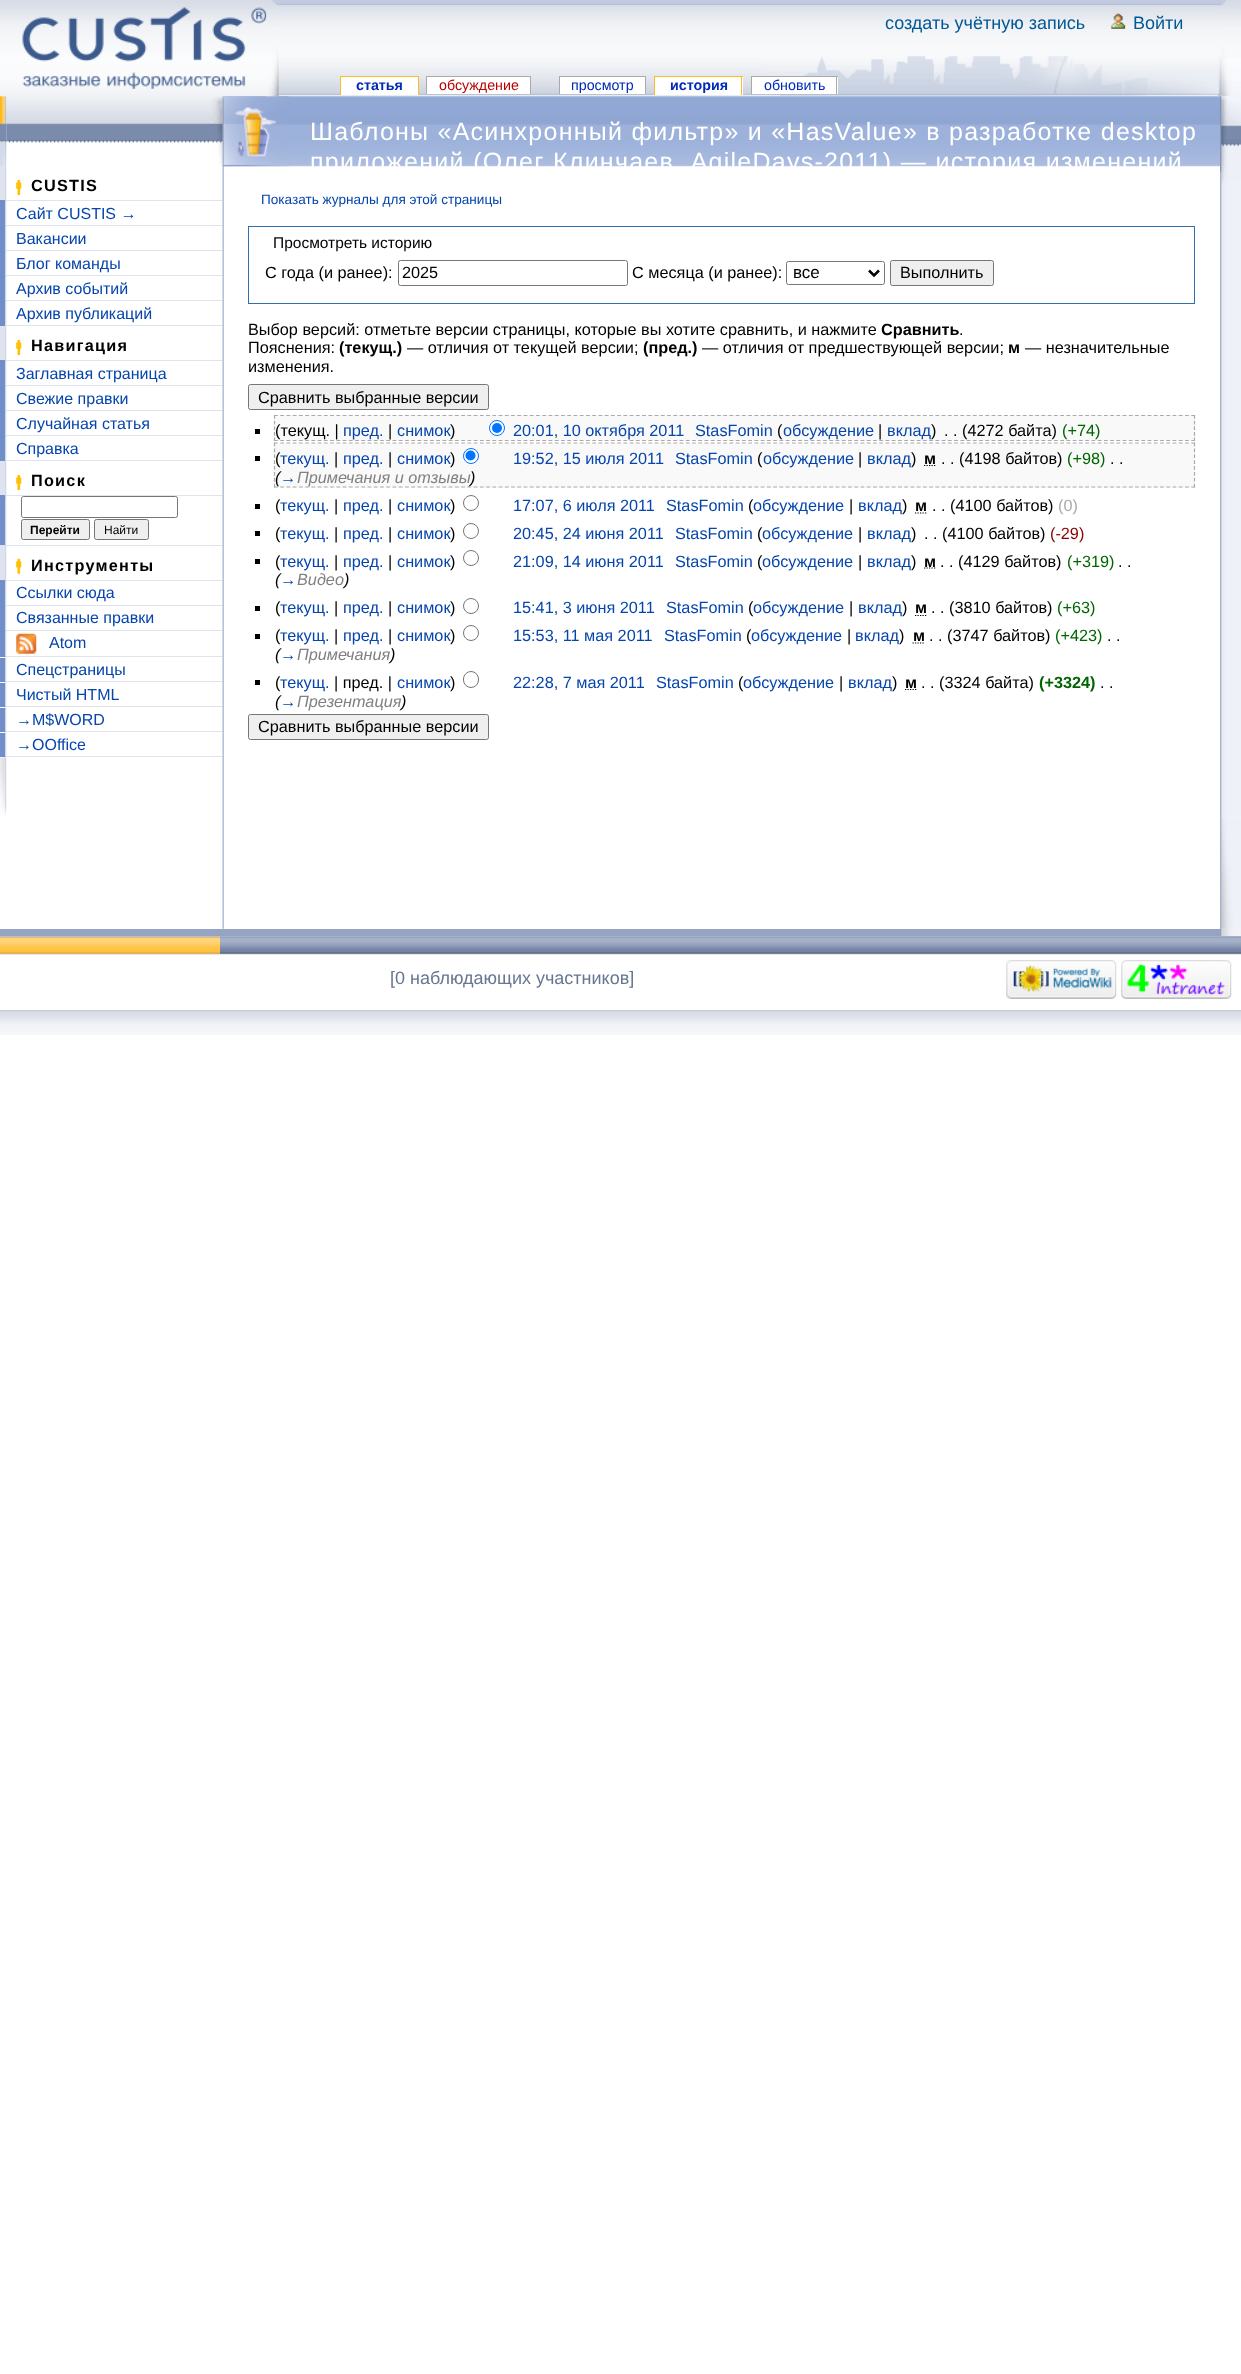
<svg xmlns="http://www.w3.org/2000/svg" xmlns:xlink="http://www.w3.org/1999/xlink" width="1241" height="2374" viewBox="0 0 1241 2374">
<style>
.cls-1{font:18px Liberation Sans;fill:#005896}
.cls-2{font:bold 14.25px Liberation Sans;fill:#002bb8}
.cls-3{font:14.25px Liberation Sans;fill:#ba0000}
.cls-4{font:14.25px Liberation Sans;fill:#002bb8}
.cls-5{font:bold 16.25px Liberation Sans;letter-spacing:1.25px;fill:#000000}
.cls-6{font:16px Liberation Sans;fill:#0645ad}
.cls-7{font:bold 12px Liberation Sans;fill:#000000}
.cls-8{font:12px Liberation Sans;fill:#000000}
.cls-9{font:25px Liberation Sans;letter-spacing:1.25px;fill:#ffffff}
.cls-10{font:13.6px Liberation Sans;fill:#0645ad}
.cls-11{font:15.5px Liberation Sans;fill:#000000}
.cls-12{font:16.25px Liberation Sans;fill:#000000}
.cls-13{font:17px Liberation Sans;fill:#000000}
.cls-14{font:bold 16.25px Liberation Sans;fill:#000000}
.cls-15{font:16.25px Liberation Sans;fill:#0645ad}
.cls-16{font:16.25px Liberation Sans;fill:#006400}
.cls-17{font:italic 16.25px Liberation Sans;fill:#000000}
.cls-18{font:italic 16.25px Liberation Sans;fill:#0645ad}
.cls-19{font:italic 16.25px Liberation Sans;fill:#808080}
.cls-20{font:16.25px Liberation Sans;fill:#aaaaaa}
.cls-21{font:16.25px Liberation Sans;fill:#8b0000}
.cls-22{font:bold 16.25px Liberation Sans;fill:#006400}
.cls-23{font:18px Liberation Sans;fill:#677691}
</style>
<rect width="100%" height="100%" fill="#ffffff"/>
<image xlink:href="image0.png" x="0" y="0" width="1241" height="97"/>
<image xlink:href="image1.png" x="0" y="0" width="279" height="96"/>
<image xlink:href="image2.png" x="22" y="7" width="245" height="82"/>
<rect fill="#ffffff" x="223" y="96" width="997" height="1"/>
<image xlink:href="image8.png" x="6" y="96" width="217" height="47"/>
<rect fill="#728ec9" x="0" y="200" width="6" height="1"/>
<image xlink:href="image12.png" x="5" y="200" width="2" height="2"/>
<rect fill="#dee3ee" x="6" y="200" width="217" height="1"/>
<rect fill="#728ec9" x="0" y="201" width="6" height="25"/>
<image xlink:href="image12.png" x="5" y="225" width="2" height="2"/>
<rect fill="#dee3ee" x="6" y="225" width="217" height="1"/>
<rect fill="#728ec9" x="0" y="226" width="6" height="25"/>
<image xlink:href="image12.png" x="5" y="250" width="2" height="2"/>
<rect fill="#dee3ee" x="6" y="250" width="217" height="1"/>
<rect fill="#728ec9" x="0" y="251" width="6" height="25"/>
<image xlink:href="image12.png" x="5" y="275" width="2" height="2"/>
<rect fill="#dee3ee" x="6" y="275" width="217" height="1"/>
<rect fill="#728ec9" x="0" y="276" width="6" height="25"/>
<image xlink:href="image12.png" x="5" y="300" width="2" height="2"/>
<rect fill="#dee3ee" x="6" y="300" width="217" height="1"/>
<rect fill="#728ec9" x="0" y="301" width="6" height="25"/>
<image xlink:href="image12.png" x="5" y="325" width="2" height="2"/>
<rect fill="#dee3ee" x="6" y="325" width="217" height="1"/>
<rect fill="#728ec9" x="0" y="360" width="6" height="1"/>
<image xlink:href="image12.png" x="5" y="360" width="2" height="2"/>
<rect fill="#dee3ee" x="6" y="360" width="217" height="1"/>
<rect fill="#728ec9" x="0" y="361" width="6" height="25"/>
<image xlink:href="image12.png" x="5" y="385" width="2" height="2"/>
<rect fill="#dee3ee" x="6" y="385" width="217" height="1"/>
<rect fill="#728ec9" x="0" y="386" width="6" height="25"/>
<image xlink:href="image12.png" x="5" y="410" width="2" height="2"/>
<rect fill="#dee3ee" x="6" y="410" width="217" height="1"/>
<rect fill="#728ec9" x="0" y="411" width="6" height="25"/>
<image xlink:href="image12.png" x="5" y="435" width="2" height="2"/>
<rect fill="#dee3ee" x="6" y="435" width="217" height="1"/>
<rect fill="#728ec9" x="0" y="436" width="6" height="25"/>
<image xlink:href="image12.png" x="5" y="460" width="2" height="2"/>
<rect fill="#dee3ee" x="6" y="460" width="217" height="1"/>
<rect fill="#728ec9" x="0" y="495" width="6" height="1"/>
<image xlink:href="image12.png" x="5" y="495" width="2" height="2"/>
<rect fill="#dee3ee" x="6" y="495" width="217" height="1"/>
<rect fill="#dee3ee" x="0" y="545" width="6" height="1"/>
<image xlink:href="image12.png" x="5" y="545" width="2" height="2"/>
<rect fill="#dee3ee" x="6" y="545" width="217" height="1"/>
<rect fill="#728ec9" x="0" y="580" width="6" height="1"/>
<image xlink:href="image12.png" x="5" y="580" width="2" height="2"/>
<rect fill="#dee3ee" x="6" y="580" width="217" height="1"/>
<rect fill="#728ec9" x="0" y="581" width="6" height="25"/>
<image xlink:href="image12.png" x="5" y="605" width="2" height="2"/>
<rect fill="#dee3ee" x="6" y="605" width="217" height="1"/>
<rect fill="#728ec9" x="0" y="606" width="6" height="25"/>
<image xlink:href="image12.png" x="5" y="630" width="2" height="2"/>
<rect fill="#dee3ee" x="6" y="630" width="217" height="1"/>
<rect fill="#728ec9" x="0" y="631" width="6" height="26"/>
<image xlink:href="image19.png" x="5" y="656" width="2" height="2"/>
<rect fill="#dee3ee" x="6" y="656" width="217" height="1"/>
<rect fill="#728ec9" x="0" y="681" width="6" height="1"/>
<image xlink:href="image19.png" x="5" y="681" width="2" height="2"/>
<rect fill="#dee3ee" x="6" y="681" width="217" height="1"/>
<rect fill="#728ec9" x="0" y="706" width="6" height="1"/>
<image xlink:href="image19.png" x="5" y="706" width="2" height="2"/>
<rect fill="#dee3ee" x="6" y="706" width="217" height="1"/>
<rect fill="#728ec9" x="0" y="731" width="6" height="1"/>
<image xlink:href="image19.png" x="5" y="731" width="2" height="2"/>
<rect fill="#dee3ee" x="6" y="731" width="217" height="1"/>
<rect fill="#728ec9" x="0" y="756" width="6" height="1"/>
<image xlink:href="image19.png" x="5" y="756" width="2" height="2"/>
<rect fill="#dee3ee" x="6" y="756" width="217" height="1"/>
<image xlink:href="image22.png" x="222" y="96" width="2" height="833"/>
<image xlink:href="image23.png" x="222" y="96" width="998" height="71"/>
<image xlink:href="image24.png" x="222" y="96" width="67" height="71"/>
<image xlink:href="image3.png" x="266" y="0" width="13" height="97"/>
<image xlink:href="image4.png" x="1111" y="13" width="15" height="16"/>
<image xlink:href="image25.png" x="1220" y="96" width="21" height="722"/>
<image xlink:href="image5.png" x="1220" y="0" width="21" height="97"/>
<image xlink:href="image6.png" x="764" y="56" width="456" height="40"/>
<rect fill="#ffffff" x="341" y="77" width="77" height="18"/>
<rect fill="#fabd23" x="340" y="76" width="79" height="1"/>
<rect fill="#fabd23" x="418" y="76" width="1" height="19"/>
<rect fill="#fabd23" x="340" y="76" width="1" height="19"/>
<rect fill="#ffffff" x="427" y="77" width="103" height="17"/>
<rect fill="#aaaaaa" x="426" y="76" width="105" height="1"/>
<rect fill="#aaaaaa" x="530" y="76" width="1" height="18"/>
<rect fill="#aaaaaa" x="426" y="76" width="1" height="18"/>
<rect fill="#ffffff" x="560" y="77" width="85" height="17"/>
<rect fill="#aaaaaa" x="559" y="76" width="87" height="1"/>
<rect fill="#aaaaaa" x="645" y="76" width="1" height="18"/>
<rect fill="#aaaaaa" x="559" y="76" width="1" height="18"/>
<rect fill="#ffffff" x="655" y="77" width="88" height="18"/>
<rect fill="#fabd23" x="654" y="76" width="89" height="1"/>
<rect fill="#fabd23" x="741" y="76" width="1" height="19"/>
<rect fill="#fabd23" x="654" y="76" width="1" height="19"/>
<rect fill="#ffffff" x="752" y="77" width="86" height="17"/>
<rect fill="#aaaaaa" x="751" y="76" width="87" height="1"/>
<rect fill="#aaaaaa" x="836" y="76" width="1" height="18"/>
<rect fill="#aaaaaa" x="751" y="76" width="1" height="18"/>
<image xlink:href="image7.png" x="0" y="96" width="7" height="70"/>
<image xlink:href="image9.png" x="210" y="96" width="13" height="71"/>
<rect fill="#dee3ee" x="0" y="166" width="6" height="34"/>
<image xlink:href="image10.png" x="5" y="166" width="2" height="34"/>
<image xlink:href="image11.png" x="16" y="180" width="6" height="15"/>
<image xlink:href="image13.png" x="5" y="201" width="2" height="24"/>
<image xlink:href="image13.png" x="5" y="226" width="2" height="24"/>
<image xlink:href="image13.png" x="5" y="251" width="2" height="24"/>
<image xlink:href="image13.png" x="5" y="276" width="2" height="24"/>
<image xlink:href="image13.png" x="5" y="301" width="2" height="24"/>
<rect fill="#dee3ee" x="0" y="326" width="6" height="34"/>
<image xlink:href="image14.png" x="5" y="326" width="2" height="34"/>
<image xlink:href="image11.png" x="16" y="340" width="6" height="15"/>
<image xlink:href="image13.png" x="5" y="361" width="2" height="24"/>
<image xlink:href="image13.png" x="5" y="386" width="2" height="24"/>
<image xlink:href="image13.png" x="5" y="411" width="2" height="24"/>
<image xlink:href="image13.png" x="5" y="436" width="2" height="24"/>
<rect fill="#dee3ee" x="0" y="461" width="6" height="34"/>
<image xlink:href="image14.png" x="5" y="461" width="2" height="34"/>
<image xlink:href="image11.png" x="16" y="475" width="6" height="15"/>
<rect fill="#728ec9" x="0" y="496" width="6" height="49"/>
<image xlink:href="image15.png" x="5" y="496" width="2" height="49"/>
<rect fill="none" stroke="#767676" x="21.5" y="496.5" width="156" height="21" rx="2"/>
<rect fill="#efefef" stroke="#767676" x="21.5" y="519.5" width="68" height="20" rx="2"/>
<rect fill="#efefef" stroke="#767676" x="94.5" y="519.5" width="54" height="20" rx="2"/>
<rect fill="#dee3ee" x="0" y="546" width="6" height="34"/>
<image xlink:href="image14.png" x="5" y="546" width="2" height="34"/>
<image xlink:href="image16.png" x="16" y="558" width="6" height="16"/>
<image xlink:href="image13.png" x="5" y="581" width="2" height="24"/>
<image xlink:href="image13.png" x="5" y="606" width="2" height="24"/>
<image xlink:href="image17.png" x="5" y="631" width="2" height="25"/>
<image xlink:href="image18.png" x="16" y="633" width="21" height="21"/>
<rect fill="#728ec9" x="0" y="658" width="5" height="23"/>
<image xlink:href="image20.png" x="5" y="657" width="2" height="24"/>
<rect fill="#728ec9" x="0" y="683" width="5" height="23"/>
<image xlink:href="image20.png" x="5" y="682" width="2" height="24"/>
<rect fill="#728ec9" x="0" y="708" width="5" height="23"/>
<image xlink:href="image20.png" x="5" y="707" width="2" height="24"/>
<rect fill="#728ec9" x="0" y="733" width="5" height="23"/>
<image xlink:href="image20.png" x="5" y="732" width="2" height="24"/>
<image xlink:href="image21.png" x="0" y="757" width="7" height="59"/>
<rect fill="none" stroke="#2f6fab" x="248.5" y="226.5" width="946" height="77"/>
<rect fill="none" stroke="#767676" x="398.5" y="260.5" width="229" height="25" rx="2"/>
<rect fill="none" stroke="#767676" x="786.5" y="261.5" width="98" height="23" rx="2"/>
<path fill="none" stroke="#000000" stroke-width="2.5" d="M869 270.5L874 275.5L879 270.5"/>
<rect fill="#efefef" stroke="#767676" x="890.5" y="260.5" width="103" height="25" rx="2"/>
<rect fill="#efefef" stroke="#767676" x="248.5" y="384.5" width="240" height="25" rx="2"/>
<rect fill="#f9f9f9" x="274" y="415" width="921" height="26"/>
<path fill="none" stroke="#aaaaaa" stroke-width="1.2" stroke-dasharray="3.75 2.49" d="M274 415.5H1195"/>
<path fill="none" stroke="#aaaaaa" stroke-width="1.2" stroke-dasharray="3.75 1.88" d="M1194.5 415V441"/>
<path fill="none" stroke="#aaaaaa" stroke-width="1.2" stroke-dasharray="3.75 2.49" d="M274 440.5H1195"/>
<path fill="none" stroke="#aaaaaa" stroke-width="1.2" stroke-dasharray="3.75 1.88" d="M274.5 415V441"/>
<rect fill="#000000" x="255" y="429" width="5" height="5"/>
<circle fill="#ffffff" stroke="#0075ff" cx="497" cy="428" r="7.5"/>
<circle fill="#0075ff" cx="497" cy="428" r="5"/>
<rect fill="#f9f9f9" x="274" y="443" width="921" height="45"/>
<path fill="none" stroke="#aaaaaa" stroke-width="1.2" stroke-dasharray="3.75 2.49" d="M274 443H1195"/>
<path fill="none" stroke="#aaaaaa" stroke-width="1.2" stroke-dasharray="3.75 2.14" d="M1194.5 442.5V487.5"/>
<path fill="none" stroke="#aaaaaa" stroke-width="1.2" stroke-dasharray="3.75 2.49" d="M274 487H1195"/>
<path fill="none" stroke="#aaaaaa" stroke-width="1.2" stroke-dasharray="3.75 2.14" d="M274.5 442.5V487.5"/>
<rect fill="#000000" x="255" y="456" width="5" height="5"/>
<circle fill="#ffffff" stroke="#0075ff" cx="471" cy="456" r="7.5"/>
<circle fill="#0075ff" cx="470.5" cy="455.5" r="5"/>
<path fill="none" stroke="#000000" stroke-width="1.2" stroke-dasharray="1.25 1.25" d="M924 465.5H936"/>
<rect fill="#000000" x="255" y="504" width="5" height="5"/>
<circle fill="none" stroke="#767676" cx="471" cy="503" r="7.5"/>
<path fill="none" stroke="#000000" stroke-width="1.2" stroke-dasharray="1.25 1.25" d="M915 513H927"/>
<rect fill="#000000" x="255" y="531" width="5" height="5"/>
<circle fill="none" stroke="#767676" cx="471" cy="531" r="7.5"/>
<rect fill="#000000" x="255" y="559" width="5" height="5"/>
<circle fill="none" stroke="#767676" cx="471" cy="558" r="7.5"/>
<path fill="none" stroke="#000000" stroke-width="1.2" stroke-dasharray="1.25 1.25" d="M924 568H936"/>
<rect fill="#000000" x="255" y="606" width="5" height="5"/>
<circle fill="none" stroke="#767676" cx="471" cy="606" r="7.5"/>
<path fill="none" stroke="#000000" stroke-width="1.2" stroke-dasharray="1.25 1.25" d="M915 615.5H927"/>
<rect fill="#000000" x="255" y="634" width="5" height="5"/>
<circle fill="none" stroke="#767676" cx="471" cy="633" r="7.5"/>
<path fill="none" stroke="#000000" stroke-width="1.2" stroke-dasharray="1.25 1.25" d="M912.5 643H924.5"/>
<rect fill="#000000" x="255" y="680" width="5" height="5"/>
<rect fill="none" stroke="#767676" x="463.5" y="671.5" width="15" height="16" rx="7.5"/>
<path fill="none" stroke="#000000" stroke-width="1.2" stroke-dasharray="1.25 1.25" d="M905 689.5H917"/>
<rect fill="#efefef" stroke="#767676" x="248.5" y="714.5" width="240" height="25" rx="2"/>
<image xlink:href="image26.png" x="1220" y="96" width="21" height="87"/>
<image xlink:href="image27.png" x="1220" y="817" width="21" height="112"/>
<image xlink:href="image29.png" x="1220" y="928" width="21" height="9"/>
<image xlink:href="image28.png" x="1220" y="817" width="13" height="112"/>
<rect fill="#96a4c4" x="0" y="929" width="1220" height="7"/>
<image xlink:href="image30.png" x="0" y="936" width="220" height="19"/>
<image xlink:href="image31.png" x="220" y="936" width="1000" height="19"/>
<image xlink:href="image32.png" x="1220" y="936" width="21" height="19"/>
<image xlink:href="image33.png" x="1006" y="960" width="111" height="39"/>
<image xlink:href="image34.png" x="1121" y="960" width="111" height="39"/>
<image xlink:href="image35.png" x="0" y="1010" width="1241" height="25"/>
<text class="cls-1" x="885" y="29">создать учётную запись</text>
<text class="cls-1" x="1133" y="29">Войти</text>
<text class="cls-2" x="356" y="90">статья</text>
<text class="cls-3" x="439" y="90">обсуждение</text>
<text class="cls-4" x="571" y="90">просмотр</text>
<text class="cls-2" x="670" y="90">история</text>
<text class="cls-4" x="764" y="90">обновить</text>
<text class="cls-5" x="31" y="191">CUSTIS</text>
<text class="cls-6"><tspan x="16" y="219">Сайт CUSTIS →</tspan><tspan x="16" y="244">Вакансии</tspan><tspan x="16" y="269">Блог команды</tspan><tspan x="16" y="294">Архив событий</tspan><tspan x="16" y="319">Архив публикаций</tspan></text>
<text class="cls-5" x="31" y="351">Навигация</text>
<text class="cls-6"><tspan x="16" y="379">Заглавная страница</tspan><tspan x="16" y="404">Свежие правки</tspan><tspan x="16" y="429">Случайная статья</tspan><tspan x="16" y="454">Справка</tspan></text>
<text class="cls-5" x="31" y="486">Поиск</text>
<text class="cls-7" x="30" y="534">Перейти</text>
<text class="cls-8" x="104" y="534">Найти</text>
<text class="cls-5" x="31" y="571">Инструменты</text>
<text class="cls-6"><tspan x="16" y="598">Ссылки сюда</tspan><tspan x="16" y="623">Связанные правки</tspan></text>
<text class="cls-6" x="49" y="648">Atom</text>
<text class="cls-6"><tspan x="16" y="675">Спецстраницы</tspan><tspan x="16" y="700">Чистый HTML</tspan><tspan x="16" y="725">→M$WORD</tspan><tspan x="16" y="750">→OOffice</tspan></text>
<text class="cls-9"><tspan x="310" y="140">Шаблоны «Асинхронный фильтр» и «HasValue» в разработке desktop</tspan><tspan x="310" y="170" word-spacing="0.25">приложений (Олег Клинчаев, AgileDays-2011) — история изменений</tspan></text>
<text class="cls-10" x="261" y="204">Показать журналы для этой страницы</text>
<text class="cls-11" x="273" y="248">Просмотреть историю</text>
<text class="cls-12" x="265" y="278">С года (и ранее):</text>
<text class="cls-12" x="402" y="278">2025</text>
<text class="cls-12" x="632" y="278">С месяца (и ранее):</text>
<text class="cls-13" x="793" y="278">все</text>
<text class="cls-12" x="900" y="278">Выполнить</text>
<text class="cls-12" x="248" y="335">Выбор версий: отметьте версии страницы, которые вы хотите сравнить, и нажмите</text>
<text class="cls-14" x="881" y="335">Сравнить</text>
<text class="cls-12" x="959" y="335">.</text>
<text class="cls-12" x="248" y="353">Пояснения:</text>
<text class="cls-14" x="339" y="353">(текущ.)</text>
<text class="cls-12" x="407" y="353">— отличия от текущей версии;</text>
<text class="cls-14" x="643" y="353">(пред.)</text>
<text class="cls-12" x="702" y="353">— отличия от предшествующей версии;</text>
<text class="cls-14" x="1008" y="353">м</text>
<text class="cls-12" x="1025" y="353">— незначительные</text>
<text class="cls-12" x="248" y="372">изменения.</text>
<text class="cls-12" x="258" y="403">Сравнить выбранные версии</text>
<text class="cls-12" x="275" y="436">(текущ. |</text>
<text class="cls-15" x="343" y="436">пред.</text>
<text class="cls-12" x="388" y="436">|</text>
<text class="cls-15" x="397" y="436">снимок</text>
<text class="cls-12" x="450" y="436">)</text>
<text class="cls-15" x="513" y="436">20:01, 10 октября 2011</text>
<text class="cls-15" x="695" y="436">StasFomin</text>
<text class="cls-12" x="777" y="436">(</text>
<text class="cls-15" x="783" y="436">обсуждение</text>
<text class="cls-12" x="878" y="436">|</text>
<text class="cls-15" x="887" y="436">вклад</text>
<text class="cls-12" x="931" y="436">)</text>
<text class="cls-12" x="944" y="436">. . (4272 байта)</text>
<text class="cls-16" x="1062" y="436">(+74)</text>
<text class="cls-12" x="275" y="464">(</text>
<text class="cls-15" x="280" y="464">текущ.</text>
<text class="cls-12" x="334" y="464">|</text>
<text class="cls-15" x="343" y="464">пред.</text>
<text class="cls-12" x="388" y="464">|</text>
<text class="cls-15" x="397" y="464">снимок</text>
<text class="cls-12" x="450" y="464">)</text>
<text class="cls-15" x="513" y="464">19:52, 15 июля 2011</text>
<text class="cls-15" x="675" y="464">StasFomin</text>
<text class="cls-12" x="757" y="464">(</text>
<text class="cls-15" x="763" y="464">обсуждение</text>
<text class="cls-12" x="858" y="464">|</text>
<text class="cls-15" x="867" y="464">вклад</text>
<text class="cls-12" x="911" y="464">)</text>
<text class="cls-14" x="924" y="464">м</text>
<text class="cls-12" x="941" y="464">. . (4198 байтов)</text>
<text class="cls-16" x="1067" y="464">(+98)</text>
<text class="cls-12" x="1110" y="464">. .</text>
<text class="cls-17" x="275" y="483">(</text>
<text class="cls-18" x="280" y="483">→</text>
<text class="cls-19" x="297" y="483">Примечания и отзывы</text>
<text class="cls-17" x="470" y="483">)</text>
<text class="cls-12" x="275" y="511">(</text>
<text class="cls-15" x="280" y="511">текущ.</text>
<text class="cls-12" x="334" y="511">|</text>
<text class="cls-15" x="343" y="511">пред.</text>
<text class="cls-12" x="388" y="511">|</text>
<text class="cls-15" x="397" y="511">снимок</text>
<text class="cls-12" x="450" y="511">)</text>
<text class="cls-15" x="513" y="511">17:07, 6 июля 2011</text>
<text class="cls-15" x="666" y="511">StasFomin</text>
<text class="cls-12" x="748" y="511">(</text>
<text class="cls-15" x="753" y="511">обсуждение</text>
<text class="cls-12" x="849" y="511">|</text>
<text class="cls-15" x="858" y="511">вклад</text>
<text class="cls-12" x="902" y="511">)</text>
<text class="cls-14" x="915" y="511">м</text>
<text class="cls-12" x="932" y="511">. . (4100 байтов)</text>
<text class="cls-20" x="1058" y="511">(0)</text>
<text class="cls-12" x="275" y="539">(</text>
<text class="cls-15" x="280" y="539">текущ.</text>
<text class="cls-12" x="334" y="539">|</text>
<text class="cls-15" x="343" y="539">пред.</text>
<text class="cls-12" x="388" y="539">|</text>
<text class="cls-15" x="397" y="539">снимок</text>
<text class="cls-12" x="450" y="539">)</text>
<text class="cls-15" x="513" y="539">20:45, 24 июня 2011</text>
<text class="cls-15" x="675" y="539">StasFomin</text>
<text class="cls-12" x="757" y="539">(</text>
<text class="cls-15" x="762" y="539">обсуждение</text>
<text class="cls-12" x="858" y="539">|</text>
<text class="cls-15" x="867" y="539">вклад</text>
<text class="cls-12" x="911" y="539">)</text>
<text class="cls-12" x="924" y="539">. . (4100 байтов)</text>
<text class="cls-21" x="1050" y="539">(-29)</text>
<text class="cls-12" x="275" y="567">(</text>
<text class="cls-15" x="280" y="567">текущ.</text>
<text class="cls-12" x="334" y="567">|</text>
<text class="cls-15" x="343" y="567">пред.</text>
<text class="cls-12" x="388" y="567">|</text>
<text class="cls-15" x="397" y="567">снимок</text>
<text class="cls-12" x="450" y="567">)</text>
<text class="cls-15" x="513" y="567">21:09, 14 июня 2011</text>
<text class="cls-15" x="675" y="567">StasFomin</text>
<text class="cls-12" x="757" y="567">(</text>
<text class="cls-15" x="762" y="567">обсуждение</text>
<text class="cls-12" x="858" y="567">|</text>
<text class="cls-15" x="867" y="567">вклад</text>
<text class="cls-12" x="911" y="567">)</text>
<text class="cls-14" x="924" y="567">м</text>
<text class="cls-12" x="940" y="567">. . (4129 байтов)</text>
<text class="cls-16" x="1067" y="567">(+319)</text>
<text class="cls-12" x="1118" y="567">. .</text>
<text class="cls-17" x="275" y="585">(</text>
<text class="cls-18" x="280" y="585">→</text>
<text class="cls-19" x="297" y="585">Видео</text>
<text class="cls-17" x="344" y="585">)</text>
<text class="cls-12" x="275" y="613">(</text>
<text class="cls-15" x="280" y="613">текущ.</text>
<text class="cls-12" x="334" y="613">|</text>
<text class="cls-15" x="343" y="613">пред.</text>
<text class="cls-12" x="388" y="613">|</text>
<text class="cls-15" x="397" y="613">снимок</text>
<text class="cls-12" x="450" y="613">)</text>
<text class="cls-15" x="513" y="613">15:41, 3 июня 2011</text>
<text class="cls-15" x="666" y="613">StasFomin</text>
<text class="cls-12" x="748" y="613">(</text>
<text class="cls-15" x="753" y="613">обсуждение</text>
<text class="cls-12" x="849" y="613">|</text>
<text class="cls-15" x="858" y="613">вклад</text>
<text class="cls-12" x="902" y="613">)</text>
<text class="cls-14" x="915" y="613">м</text>
<text class="cls-12" x="931" y="613">. . (3810 байтов)</text>
<text class="cls-16" x="1057" y="613">(+63)</text>
<text class="cls-12" x="275" y="641">(</text>
<text class="cls-15" x="280" y="641">текущ.</text>
<text class="cls-12" x="334" y="641">|</text>
<text class="cls-15" x="343" y="641">пред.</text>
<text class="cls-12" x="388" y="641">|</text>
<text class="cls-15" x="397" y="641">снимок</text>
<text class="cls-12" x="450" y="641">)</text>
<text class="cls-15" x="513" y="641">15:53, 11 мая 2011</text>
<text class="cls-15" x="664" y="641">StasFomin</text>
<text class="cls-12" x="746" y="641">(</text>
<text class="cls-15" x="751" y="641">обсуждение</text>
<text class="cls-12" x="847" y="641">|</text>
<text class="cls-15" x="855" y="641">вклад</text>
<text class="cls-12" x="899" y="641">)</text>
<text class="cls-14" x="913" y="641">м</text>
<text class="cls-12" x="929" y="641">. . (3747 байтов)</text>
<text class="cls-16" x="1055" y="641">(+423)</text>
<text class="cls-12" x="1107" y="641">. .</text>
<text class="cls-17" x="275" y="660">(</text>
<text class="cls-18" x="280" y="660">→</text>
<text class="cls-19" x="297" y="660">Примечания</text>
<text class="cls-17" x="390" y="660">)</text>
<text class="cls-12" x="275" y="688">(</text>
<text class="cls-15" x="280" y="688">текущ.</text>
<text class="cls-12" x="334" y="688">| пред. |</text>
<text class="cls-15" x="397" y="688">снимок</text>
<text class="cls-12" x="450" y="688">)</text>
<text class="cls-15" x="513" y="688">22:28, 7 мая 2011</text>
<text class="cls-15" x="656" y="688">StasFomin</text>
<text class="cls-12" x="738" y="688">(</text>
<text class="cls-15" x="743" y="688">обсуждение</text>
<text class="cls-12" x="839" y="688">|</text>
<text class="cls-15" x="848" y="688">вклад</text>
<text class="cls-12" x="892" y="688">)</text>
<text class="cls-14" x="905" y="688">м</text>
<text class="cls-12" x="921" y="688">. . (3324 байта)</text>
<text class="cls-22" x="1039" y="688">(+3324)</text>
<text class="cls-12" x="1100" y="688">. .</text>
<text class="cls-17" x="275" y="707">(</text>
<text class="cls-18" x="280" y="707">→</text>
<text class="cls-19" x="297" y="707">Презентация</text>
<text class="cls-17" x="401" y="707">)</text>
<text class="cls-12" x="258" y="732">Сравнить выбранные версии</text>
<text class="cls-23" x="390" y="984">[0 наблюдающих участников]</text>
</svg>
